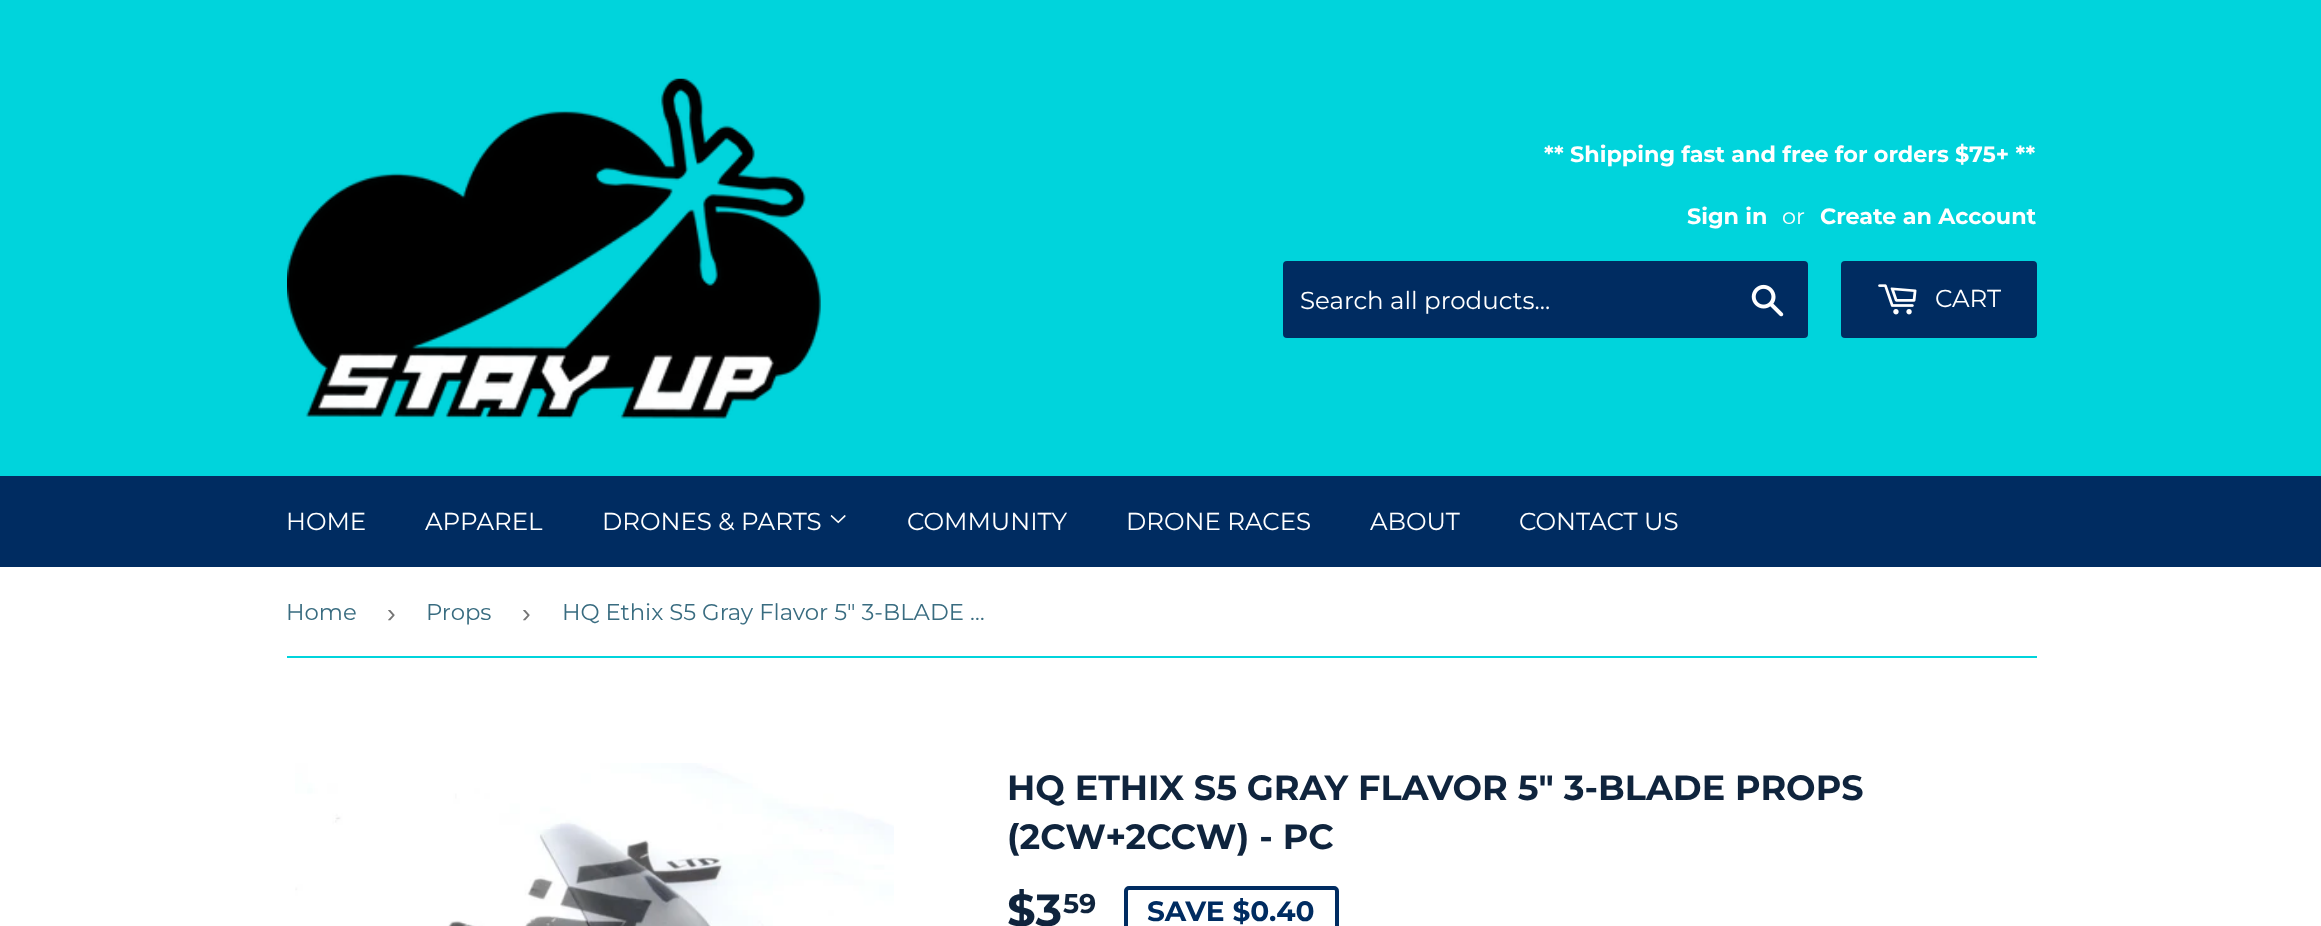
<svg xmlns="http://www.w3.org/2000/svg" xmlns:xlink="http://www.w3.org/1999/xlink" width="2321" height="926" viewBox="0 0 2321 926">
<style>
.cls-1{font:bold 22.3px Montserrat;fill:#ffffff}
.cls-2{font:22.3px Montserrat;fill:#ffffff}
.cls-3{font:24.5px Montserrat;fill:#ffffff}
.cls-4{font:22.75px Montserrat;fill:#396c80}
.cls-5{font:26px Liberation Sans;fill:#767676}
.cls-6{font:bold 35px Montserrat;fill:#0f243d}
.cls-7{font:bold 45px Montserrat;fill:#0f243d}
.cls-8{font:bold 27px Montserrat;fill:#0f243d}
.cls-9{font:bold 28px Montserrat;fill:#002c61}
</style>
<rect width="100%" height="100%" fill="#ffffff"/>
<rect fill="#00d4dc" x="0" y="0" width="2321" height="476"/>
<image xlink:href="image0.png" x="287" y="78" width="534" height="341"/>
<rect fill="#002c61" x="1283" y="261" width="525" height="77" rx="4"/>
<image xlink:href="image1.png" x="1751" y="284" width="33" height="33"/>
<rect fill="#002c61" x="1841" y="261" width="196" height="77" rx="4"/>
<image xlink:href="image2.png" x="1878" y="284" width="39" height="31"/>
<rect fill="#002c61" x="0" y="476" width="2321" height="91"/>
<image xlink:href="image3.png" x="830" y="515" width="16" height="9"/>
<rect fill="#00d4dc" x="287" y="656" width="1750" height="2"/>
<image xlink:href="image4.png" x="295" y="763" width="599" height="163"/>
<rect fill="none" stroke="#002c61" stroke-width="4" x="1126" y="888" width="211" height="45" rx="3"/>
<text class="cls-1" x="1544" y="162">** Shipping fast and free for orders $75+ **</text>
<text class="cls-1" x="1687" y="224">Sign in</text>
<text class="cls-2" x="1782" y="224">or</text>
<text class="cls-1" x="1820" y="224">Create an Account</text>
<text class="cls-3" x="1300" y="309">Search all products...</text>
<text class="cls-3" x="1935" y="307">CART</text>
<text class="cls-3" x="286" y="530">HOME</text>
<text class="cls-3" x="425" y="530">APPAREL</text>
<text class="cls-3" x="602" y="530">DRONES &amp; PARTS</text>
<text class="cls-3" x="907" y="530">COMMUNITY</text>
<text class="cls-3" x="1126" y="530">DRONE RACES</text>
<text class="cls-3" x="1370" y="530">ABOUT</text>
<text class="cls-3" x="1519" y="530">CONTACT US</text>
<text class="cls-4" x="286" y="620">Home</text>
<text class="cls-5" x="387" y="622">›</text>
<text class="cls-4" x="426" y="620">Props</text>
<text class="cls-5" x="522" y="622">›</text>
<text class="cls-4" x="562" y="620">HQ Ethix S5 Gray Flavor 5" 3-BLADE …</text>
<text class="cls-6"><tspan x="1007" y="800">HQ ETHIX S5 GRAY FLAVOR 5" 3-BLADE PROPS</tspan><tspan x="1007" y="849">(2CW+2CCW) - PC</tspan></text>
<text class="cls-7" x="1007" y="926">$3</text>
<text class="cls-8" x="1063" y="913">59</text>
<text class="cls-9" x="1147" y="921">SAVE $0.40</text>
</svg>
